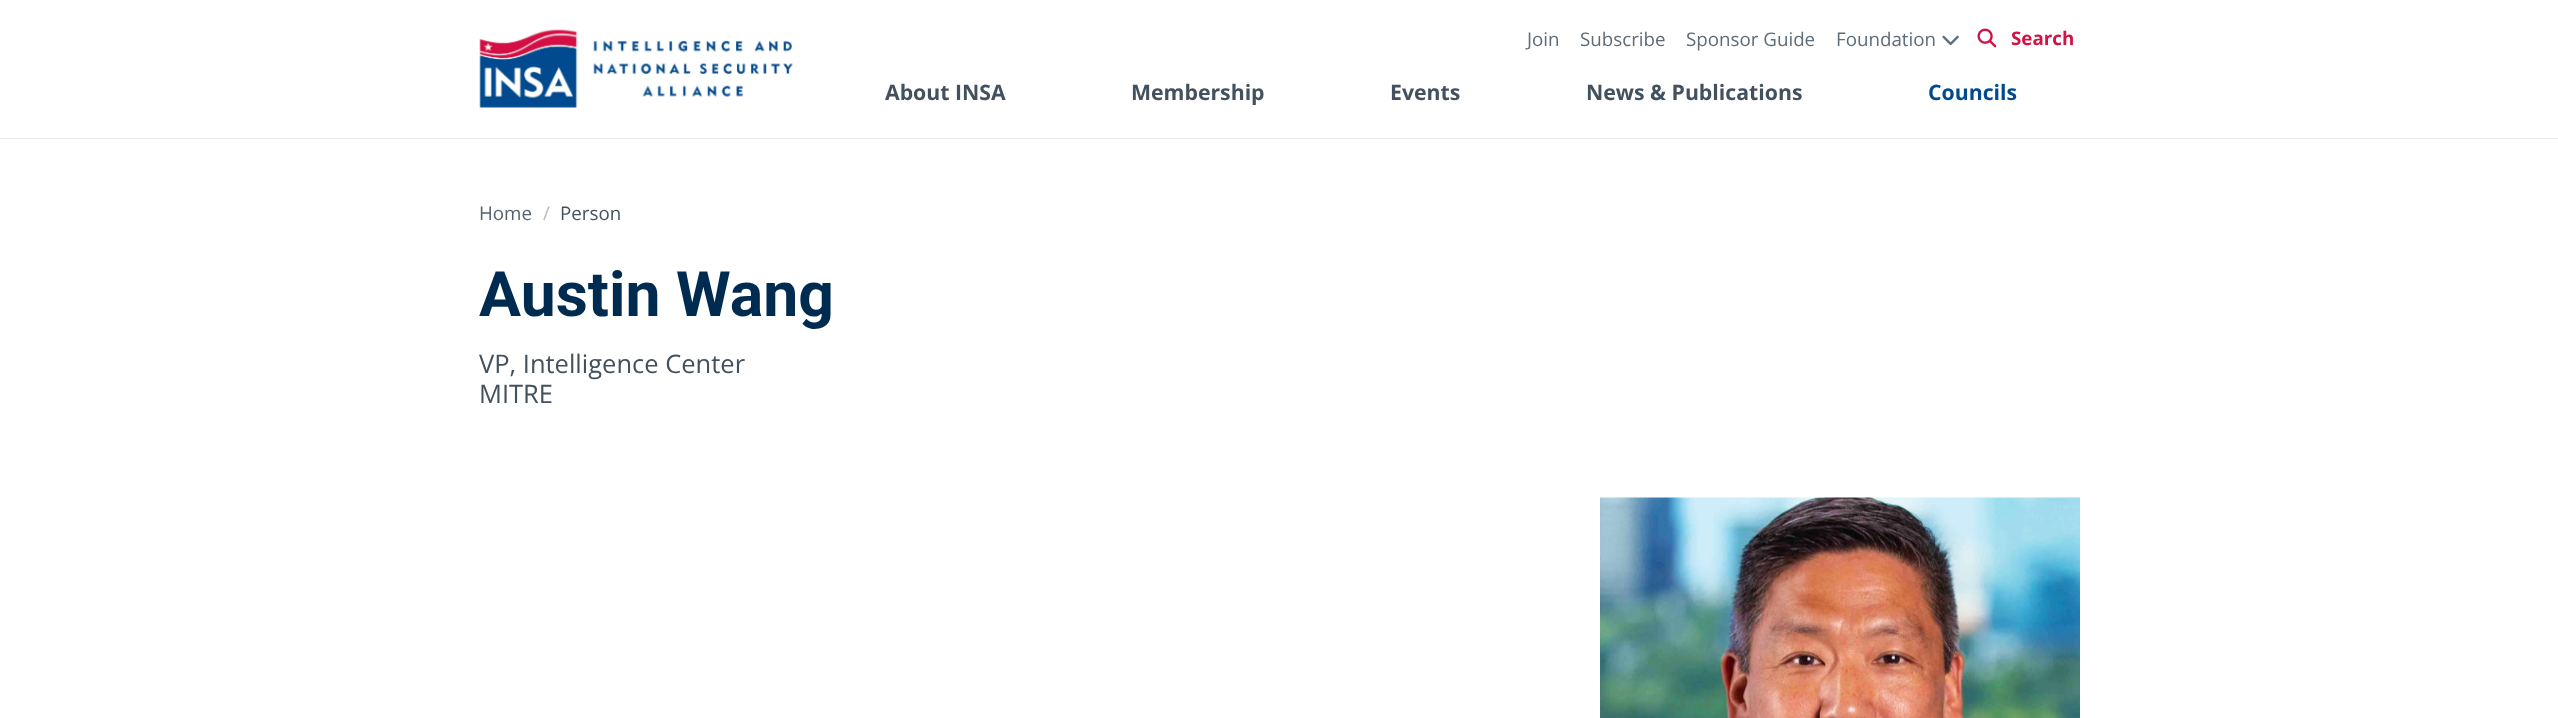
<svg xmlns="http://www.w3.org/2000/svg" xmlns:xlink="http://www.w3.org/1999/xlink" width="2558" height="718" viewBox="0 0 2558 718">
<style>
.cls-1{font:18.75px Open Sans;fill:#5e6c78}
.cls-2{font:bold 18.75px Open Sans;fill:#d31145}
.cls-3{font:bold 21.25px Open Sans;fill:#43515f}
.cls-4{font:bold 21.25px Open Sans;fill:#004b8d}
.cls-5{font:18.75px Open Sans;fill:#56626f}
.cls-6{font:18.75px Open Sans;fill:#b4b9bf}
.cls-7{font:18.75px Open Sans;fill:#43515f}
.cls-8{font:bold 62.5px Roboto;fill:#002b50}
.cls-9{font:25.5px Open Sans;fill:#43515f}
</style>
<rect width="100%" height="100%" fill="#ffffff"/>
<rect fill="#e5eaee" x="0" y="138" width="2558" height="1"/>
<image xlink:href="image0.png" x="479" y="29" width="314" height="79"/>
<image xlink:href="image1.png" x="1942" y="35" width="17" height="11"/>
<image xlink:href="image2.png" x="1977" y="28" width="20" height="20"/>
<image xlink:href="image3.png" x="1600" y="497" width="480" height="221"/>
<text class="cls-1" x="1527" y="46">Join</text>
<text class="cls-1" x="1580" y="46">Subscribe</text>
<text class="cls-1" x="1686" y="46">Sponsor Guide</text>
<text class="cls-1" x="1836" y="46">Foundation</text>
<text class="cls-2" x="2011" y="45">Search</text>
<text class="cls-3" x="885" y="100">About INSA</text>
<text class="cls-3" x="1131" y="100">Membership</text>
<text class="cls-3" x="1390" y="100">Events</text>
<text class="cls-3" x="1586" y="100">News &amp; Publications</text>
<text class="cls-4" x="1928" y="100">Councils</text>
<text class="cls-5" x="479" y="220">Home</text>
<text class="cls-6" x="543" y="220">/</text>
<text class="cls-7" x="560" y="220">Person</text>
<text class="cls-8" x="479" y="316">Austin Wang</text>
<text class="cls-9"><tspan x="479" y="373">VP, Intelligence Center</tspan><tspan x="479" y="403">MITRE</tspan></text>
</svg>
